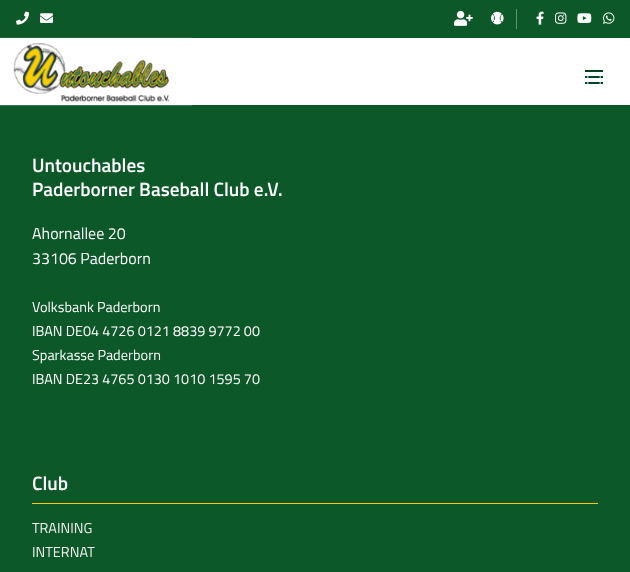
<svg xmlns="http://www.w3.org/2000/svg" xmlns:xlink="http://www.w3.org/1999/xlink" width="630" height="572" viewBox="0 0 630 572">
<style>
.cls-1{font:600 19.25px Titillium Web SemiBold;fill:#ffffff}
.cls-2{font:16px Titillium Web;fill:#ffffff}
.cls-3{font:14.4px Titillium Web;fill:#ffffff}
.cls-4{font:14.4px Titillium Web;fill:#f0f0f0}
</style>
<rect width="100%" height="100%" fill="#0c5828"/>
<rect fill="#ffffff" x="0" y="38" width="630" height="67"/>
<image xlink:href="image0.png" x="16" y="11" width="13" height="14"/>
<image xlink:href="image1.png" x="40" y="13" width="13" height="10"/>
<image xlink:href="image2.png" x="454" y="10" width="19" height="16"/>
<image xlink:href="image3.png" x="491" y="11" width="13" height="14"/>
<rect fill="#619273" x="516" y="9" width="1" height="20"/>
<image xlink:href="image4.png" x="536" y="11" width="8" height="14"/>
<image xlink:href="image5.png" x="555" y="12" width="12" height="12"/>
<image xlink:href="image6.png" x="577" y="13" width="15" height="10"/>
<image xlink:href="image7.png" x="603" y="12" width="12" height="12"/>
<image xlink:href="image8.png" x="0" y="37" width="193" height="69"/>
<rect fill="#014421" x="585" y="82" width="18" height="2"/>
<rect fill="#014421" x="585" y="76" width="18" height="2"/>
<rect fill="#014421" x="585" y="70" width="18" height="2"/>
<image xlink:href="image9.png" x="587" y="76" width="14" height="8"/>
<rect fill="#ffcc00" x="32" y="503" width="566" height="1"/>
<text class="cls-1"><tspan x="32" y="172">Untouchables</tspan><tspan x="32" y="196">Paderborner Baseball Club e.V.</tspan></text>
<text class="cls-2"><tspan x="32" y="239">Ahornallee 20</tspan><tspan x="32" y="264">33106 Paderborn</tspan></text>
<text class="cls-3"><tspan x="32" y="312">Volksbank Paderborn</tspan><tspan x="32" y="336">IBAN DE04 4726 0121 8839 9772 00</tspan><tspan x="32" y="360">Sparkasse Paderborn</tspan><tspan x="32" y="384">IBAN DE23 4765 0130 1010 1595 70</tspan></text>
<text class="cls-1" x="32" y="490">Club</text>
<text class="cls-4"><tspan x="32" y="533">TRAINING</tspan><tspan x="32" y="557">INTERNAT</tspan></text>
</svg>
